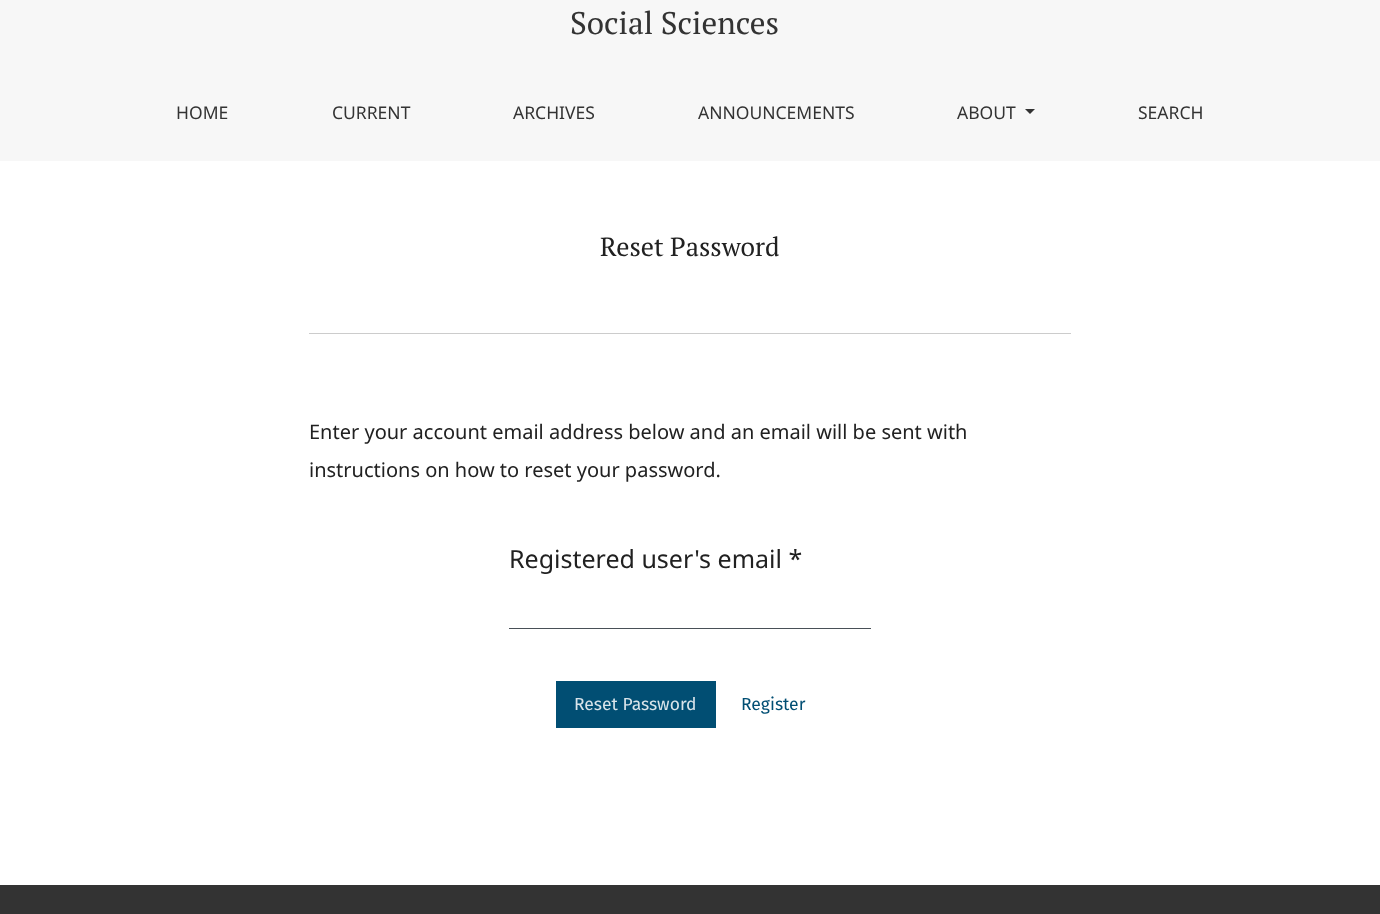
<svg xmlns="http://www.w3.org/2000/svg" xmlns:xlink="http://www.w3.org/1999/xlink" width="1380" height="914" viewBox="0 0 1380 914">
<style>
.cls-1{font:31.25px PT Serif;fill:#333333}
.cls-2{font:17.5px Noto Sans;fill:#333333}
.cls-3{font:26.25px PT Serif;fill:#212121}
.cls-4{font:20px Noto Sans;fill:#212121}
.cls-5{font:25px Noto Sans;fill:#212121}
.cls-6{font:17.5px Fira Sans;fill:#d9e4ea}
.cls-7{font:17.5px Fira Sans;fill:#014e73}
</style>
<rect width="100%" height="100%" fill="#ffffff"/>
<rect fill="#f7f7f7" x="0" y="0" width="1380" height="161"/>
<path fill="#333333" d="M1025 109H1035L1030 114Z"/>
<rect fill="#cccccc" x="309" y="333" width="762" height="1"/>
<rect fill="#495057" x="509" y="628" width="362" height="1"/>
<rect fill="#014e73" x="556" y="681" width="160" height="47"/>
<rect fill="#333333" x="0" y="885" width="1380" height="29"/>
<text class="cls-1" x="570" y="34">Social Sciences</text>
<text class="cls-2" x="176" y="119">HOME</text>
<text class="cls-2" x="332" y="119">CURRENT</text>
<text class="cls-2" x="513" y="119">ARCHIVES</text>
<text class="cls-2" x="698" y="119">ANNOUNCEMENTS</text>
<text class="cls-2" x="957" y="119">ABOUT</text>
<text class="cls-2" x="1138" y="119">SEARCH</text>
<text class="cls-3" x="600" y="256">Reset Password</text>
<text class="cls-4"><tspan x="309" y="439">Enter your account email address below and an email will be sent with</tspan><tspan x="309" y="477">instructions on how to reset your password.</tspan></text>
<text class="cls-5" x="509" y="568">Registered user's email *</text>
<text class="cls-6" x="574" y="710">Reset Password</text>
<text class="cls-7" x="741" y="710">Register</text>
</svg>
